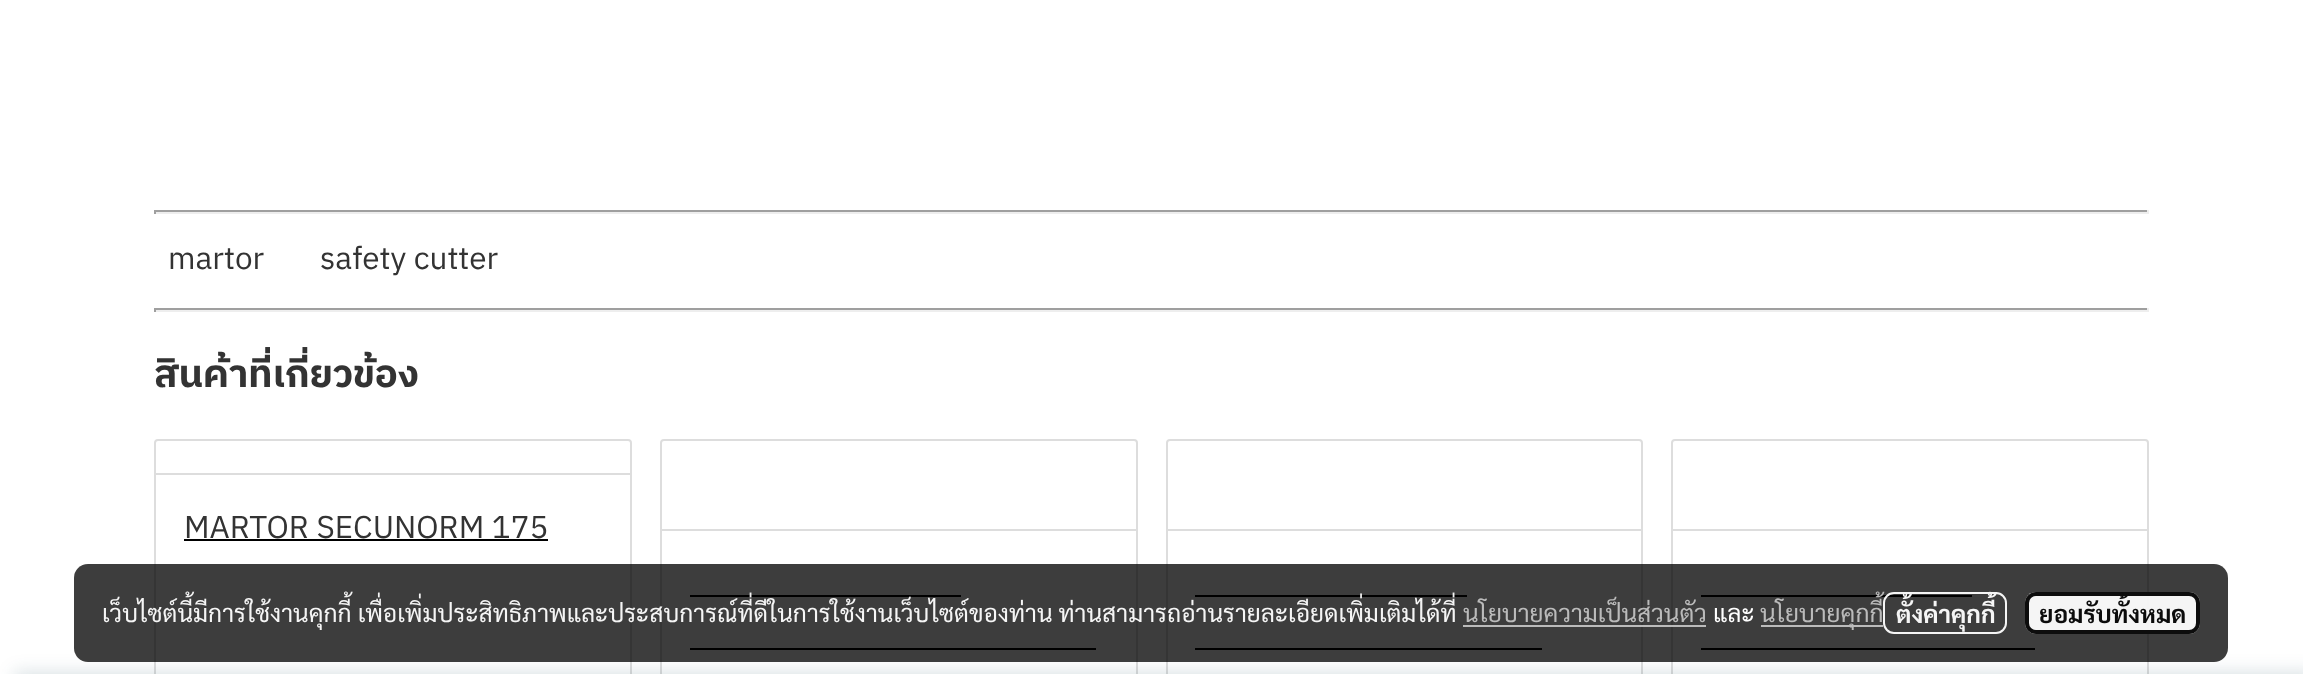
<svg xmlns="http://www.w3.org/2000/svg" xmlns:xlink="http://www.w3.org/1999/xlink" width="2303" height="674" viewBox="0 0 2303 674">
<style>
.cls-1{font:31.5px IBM Plex Sans Thai;fill:#333333}
.cls-2{font:bold 38.5px IBM Plex Sans Thai;fill:#333333}
.cls-3{font:24.5px Sarabun;fill:#f5f5f5}
.cls-4{font:24.5px Sarabun;fill:#bbbbbb}
.cls-5{font:24.5px Sarabun;fill:#ffffff}
.cls-6{font:bold 24.5px Sarabun;fill:#f5f5f5}
.cls-7{font:bold 24.5px Sarabun;fill:#0c0c0c}
</style>
<rect width="100%" height="100%" fill="#ffffff"/>
<rect fill="#9f9f9f" x="154" y="210" width="1995" height="2"/>
<rect fill="#eeeeee" x="2147" y="210" width="2" height="4"/>
<rect fill="#eeeeee" x="154" y="212" width="1995" height="2"/>
<rect fill="#9f9f9f" x="154" y="210" width="2" height="4"/>
<rect fill="#9f9f9f" x="154" y="308" width="1995" height="2"/>
<rect fill="#eeeeee" x="2147" y="308" width="2" height="4"/>
<rect fill="#eeeeee" x="154" y="310" width="1995" height="2"/>
<rect fill="#9f9f9f" x="154" y="308" width="2" height="4"/>
<rect fill="none" stroke="#dddddd" stroke-width="2" x="155" y="440" width="476" height="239" rx="3"/>
<rect fill="#dddddd" x="156" y="473" width="474" height="2"/>
<rect fill="#000000" x="184" y="539" width="364" height="2"/>
<rect fill="none" stroke="#dddddd" stroke-width="2" x="661" y="440" width="476" height="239" rx="3"/>
<rect fill="#dddddd" x="662" y="529" width="474" height="2"/>
<rect fill="#000000" x="690" y="595" width="271" height="2"/>
<rect fill="#000000" x="690" y="648" width="406" height="2"/>
<rect fill="none" stroke="#dddddd" stroke-width="2" x="1167" y="440" width="475" height="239" rx="3"/>
<rect fill="#dddddd" x="1167" y="529" width="475" height="2"/>
<rect fill="#000000" x="1195" y="595" width="272" height="2"/>
<rect fill="#000000" x="1195" y="648" width="347" height="2"/>
<rect fill="none" stroke="#dddddd" stroke-width="2" x="1672" y="440" width="476" height="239" rx="3"/>
<rect fill="#dddddd" x="1673" y="529" width="474" height="2"/>
<rect fill="#000000" x="1701" y="595" width="271" height="2"/>
<rect fill="#000000" x="1701" y="648" width="334" height="2"/>
<rect fill="#00354a" fill-opacity="0.15" filter="blur(9px)" x="14" y="672" width="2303" height="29"/>
<rect fill="#000000" fill-opacity="0.76" x="74" y="564" width="2154" height="98" rx="14"/>
<rect fill="#c2c2c2" fill-opacity="0.95" x="1463" y="625" width="243" height="2"/>
<rect fill="#c2c2c2" fill-opacity="0.95" x="1761" y="625" width="122" height="2"/>
<rect fill="none" stroke="#ffffff" stroke-opacity="0.95" stroke-width="2" x="1884" y="593" width="122" height="40" rx="10"/>
<rect fill="#ffffff" fill-opacity="0.95" x="2025" y="592" width="175" height="42" rx="11"/>
<rect fill="none" stroke="#000000" stroke-opacity="0.95" stroke-width="4" x="2027" y="594" width="171" height="38" rx="9"/>
<text class="cls-1" x="168" y="269">martor</text>
<text class="cls-1" x="320" y="269">safety cutter</text>
<text class="cls-2" x="154" y="387">สินค้าที่เกี่ยวข้อง</text>
<text class="cls-1" x="184" y="538">MARTOR SECUNORM 175</text>
<text class="cls-3" x="102" y="622">เว็บไซต์นี้มีการใช้งานคุกกี้ เพื่อเพิ่มประสิทธิภาพและประสบการณ์ที่ดีในการใช้งานเว็บไซต์ของท่าน ท่านสามารถอ่านรายละเอียดเพิ่มเติมได้ที่</text>
<text class="cls-4" x="1463" y="622">นโยบายความเป็นส่วนตัว</text>
<text class="cls-5" x="1713" y="622">และ</text>
<text class="cls-4" x="1760" y="622">นโยบายคุกกี้</text>
<text class="cls-6" x="1896" y="623">ตั้งค่าคุกกี้</text>
<text class="cls-7" x="2039" y="623">ยอมรับทั้งหมด</text>
</svg>
